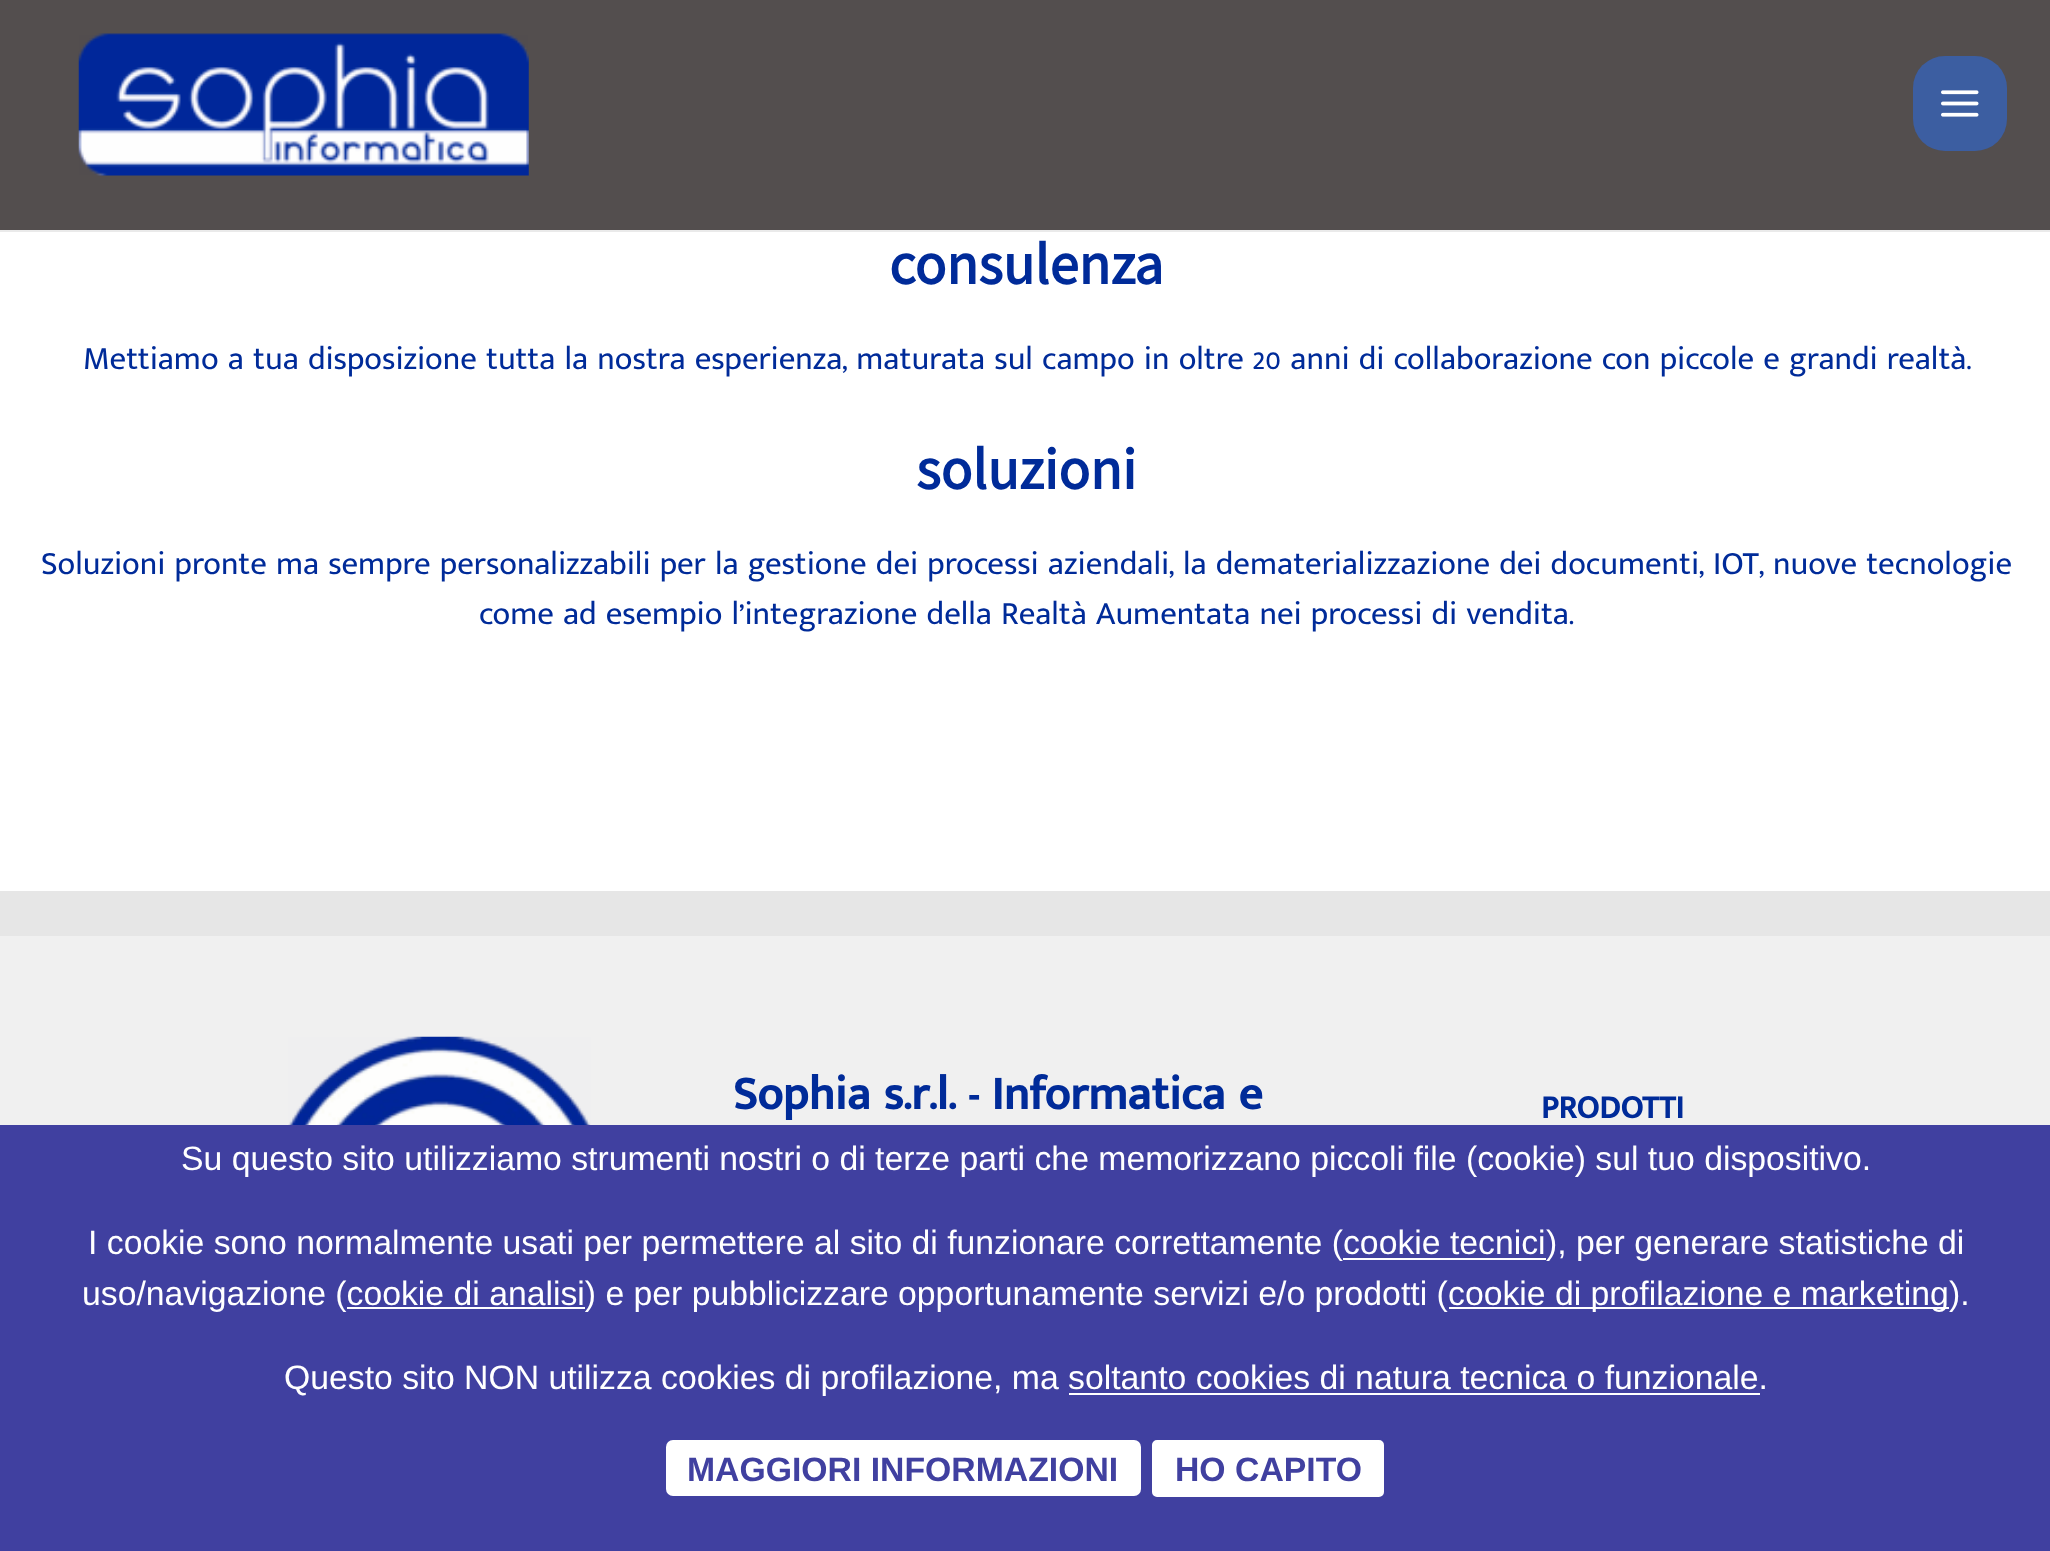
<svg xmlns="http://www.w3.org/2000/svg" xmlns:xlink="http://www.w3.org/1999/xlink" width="2050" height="1551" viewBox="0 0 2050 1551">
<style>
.cls-1{font:bold 58.5px Source Sans Pro;fill:#002b99}
.cls-2{font:32.83px Mukta Malar;fill:#002b99}
.cls-3{font:bold 47.25px Mukta Malar;fill:#002b99}
.cls-4{font:bold 32.83px Mukta Malar;fill:#002b99}
.cls-5{font:33.75px Liberation Sans;fill:#ffffff}
.cls-6{font:bold 33.75px Liberation Sans;fill:#4040a0}
</style>
<rect width="100%" height="100%" fill="#ffffff"/>
<rect fill="#534e4e" x="0" y="0" width="2050" height="230"/>
<rect fill="#eaeaea" x="0" y="230" width="2050" height="2"/>
<image xlink:href="image0.png" x="78" y="33" width="451" height="143"/>
<rect fill="#3c5ea1" x="1913" y="56" width="94" height="95" rx="32"/>
<image xlink:href="image1.png" x="1941" y="90" width="38" height="27"/>
<rect fill="#f0f0f0" x="0" y="936" width="2050" height="189"/>
<rect fill="#e6e6e6" x="0" y="891" width="2050" height="45"/>
<image xlink:href="image2.png" x="288" y="1036" width="303" height="89"/>
<rect fill="#4040a0" x="0" y="1125" width="2050" height="426"/>
<rect fill="#ffffff" x="1343" y="1258" width="203" height="2"/>
<rect fill="#ffffff" x="1449" y="1307" width="500" height="2"/>
<rect fill="#ffffff" x="347" y="1307" width="238" height="2"/>
<rect fill="#ffffff" x="1069" y="1393" width="691" height="2"/>
<rect fill="#ffffff" x="666" y="1440" width="475" height="56" rx="7"/>
<rect fill="#ffffff" stroke="#4040a0" stroke-width="2" x="1151" y="1439" width="234" height="59" rx="6"/>
<text class="cls-1" x="889" y="284">consulenza</text>
<text class="cls-2" x="83" y="369">Mettiamo a tua disposizione tutta la nostra esperienza, maturata sul campo in oltre 20 anni di collaborazione con piccole e grandi realtà.</text>
<text class="cls-1" x="916" y="489">soluzioni</text>
<text class="cls-2" x="41" y="574">Soluzioni pronte ma sempre personalizzabili per la gestione dei processi aziendali, la dematerializzazione dei documenti, IOT, nuove tecnologie</text>
<text class="cls-2" x="479" y="624">come ad esempio l’integrazione della Realtà Aumentata nei processi di vendita.</text>
<text class="cls-3" x="733" y="1109">Sophia s.r.l. - Informatica e</text>
<text class="cls-4" x="1541" y="1118">PRODOTTI</text>
<text class="cls-5" x="181" y="1170">Su questo sito utilizziamo strumenti nostri o di terze parti che memorizzano piccoli file (cookie) sul tuo dispositivo.</text>
<text class="cls-5" x="88" y="1254">I cookie sono normalmente usati per permettere al sito di funzionare correttamente (cookie tecnici</text>
<text class="cls-5" x="1546" y="1254">), per generare statistiche di</text>
<text class="cls-5" x="82" y="1305">uso/navigazione (cookie di analisi) e per pubblicizzare opportunamente servizi e/o prodotti (</text>
<text class="cls-5" x="1448" y="1305">cookie di profilazione e marketing).</text>
<text class="cls-5" x="284" y="1389">Questo sito NON utilizza cookies di profilazione, ma soltanto cookies di natura tecnica o funzionale.</text>
<text class="cls-6" x="687" y="1481">MAGGIORI INFORMAZIONI</text>
<text class="cls-6" x="1175" y="1481">HO CAPITO</text>
</svg>
